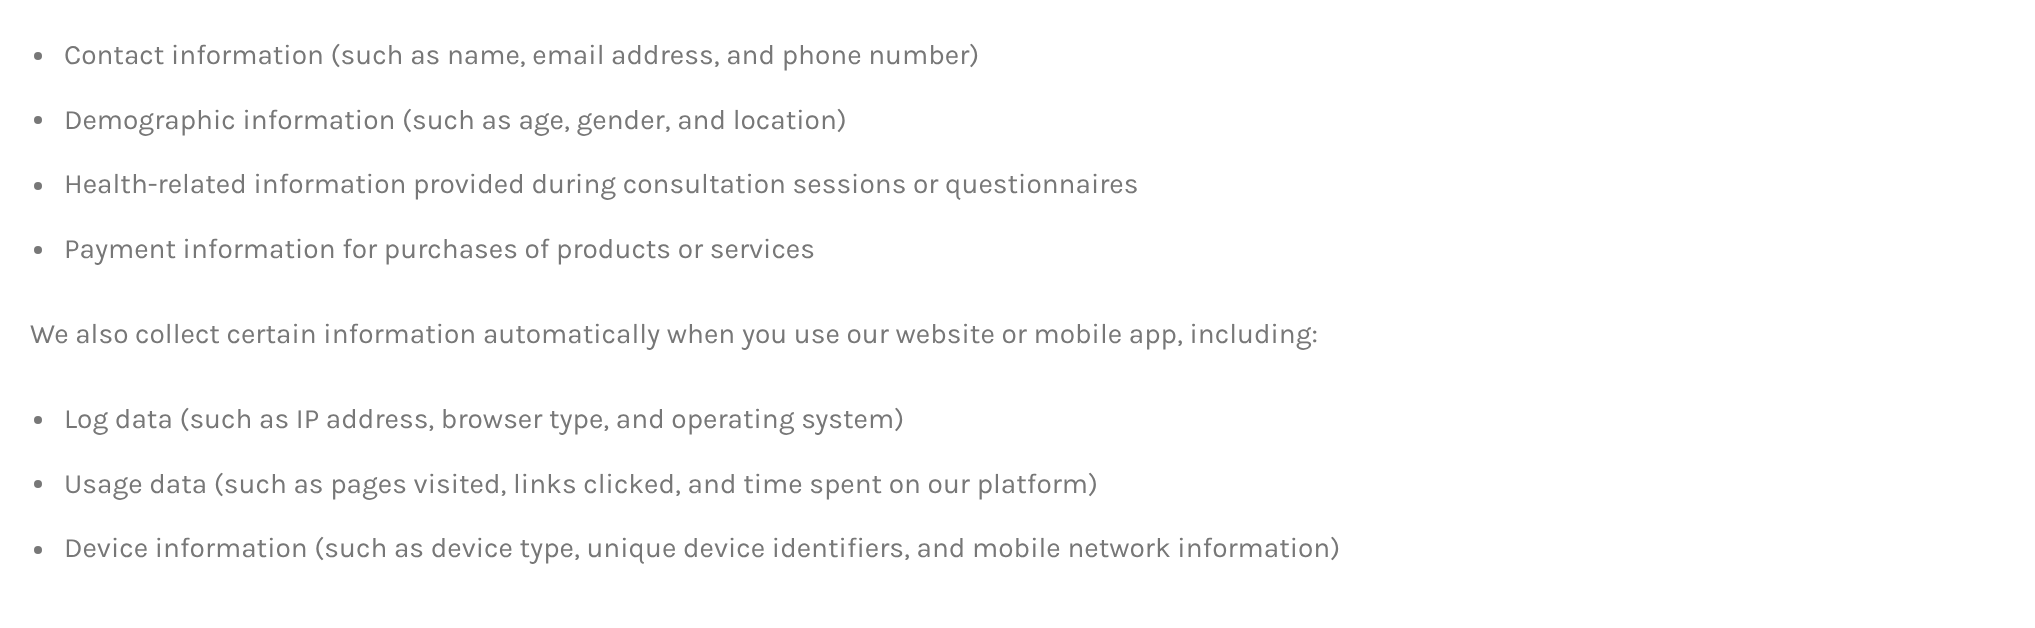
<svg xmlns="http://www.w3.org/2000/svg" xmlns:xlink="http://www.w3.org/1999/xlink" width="2035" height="628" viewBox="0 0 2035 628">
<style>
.cls-1{font:28px Karla;fill:#777777}
</style>
<rect width="100%" height="100%" fill="#ffffff"/>
<circle fill="#777777" cx="38" cy="56" r="4"/>
<circle fill="#777777" cx="38" cy="120" r="4"/>
<circle fill="#777777" cx="38" cy="186" r="4"/>
<circle fill="#777777" cx="38" cy="250" r="4"/>
<circle fill="#777777" cx="38" cy="420" r="4"/>
<circle fill="#777777" cx="38" cy="484" r="4"/>
<circle fill="#777777" cx="38" cy="550" r="4"/>
<text class="cls-1" x="64" y="64">Contact information (such as name, email address, and phone number)</text>
<text class="cls-1" x="64" y="129">Demographic information (such as age, gender, and location)</text>
<text class="cls-1" x="64" y="193">Health-related information provided during consultation sessions or questionnaires</text>
<text class="cls-1" x="64" y="258">Payment information for purchases of products or services</text>
<text class="cls-1" x="30" y="343">We also collect certain information automatically when you use our website or mobile app, including:</text>
<text class="cls-1" x="64" y="428">Log data (such as IP address, browser type, and operating system)</text>
<text class="cls-1" x="64" y="493">Usage data (such as pages visited, links clicked, and time spent on our platform)</text>
<text class="cls-1" x="64" y="557">Device information (such as device type, unique device identifiers, and mobile network information)</text>
</svg>
